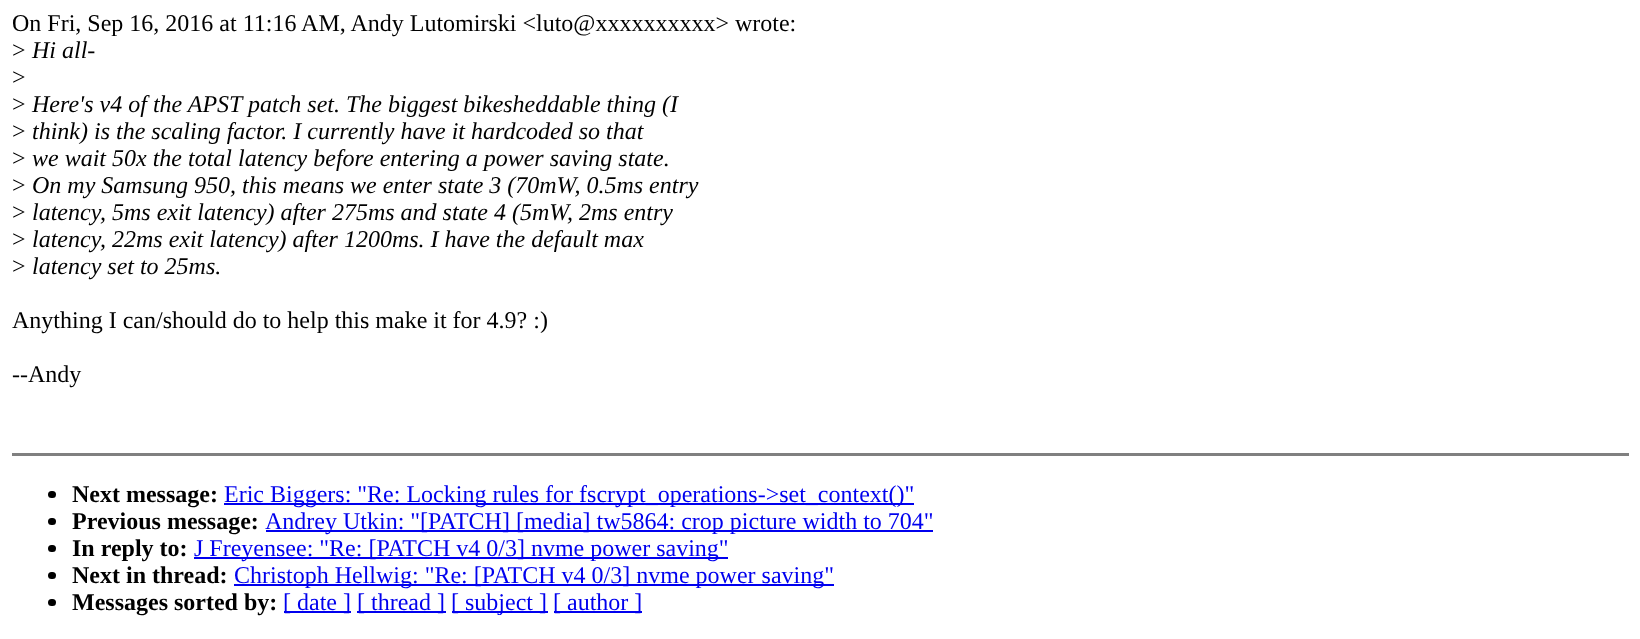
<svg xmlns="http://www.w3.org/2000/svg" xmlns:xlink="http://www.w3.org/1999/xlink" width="1640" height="639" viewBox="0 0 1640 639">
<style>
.cls-1{font:24px Liberation Serif;fill:#000000}
.cls-2{font:italic 24px Liberation Serif;fill:#000000}
.cls-3{font:bold 24px Liberation Serif;fill:#000000}
.cls-4{font:24px Liberation Serif;fill:#0000ee}
</style>
<rect width="100%" height="100%" fill="#ffffff"/>
<rect fill="#808080" x="12" y="453" width="1617" height="3"/>
<rect fill="#000000" x="48" y="491" width="8" height="7" rx="3.5"/>
<rect fill="#0000ee" x="224" y="503" width="690" height="2"/>
<rect fill="#000000" x="48" y="518" width="8" height="7" rx="3.5"/>
<rect fill="#0000ee" x="266" y="530" width="667" height="2"/>
<rect fill="#000000" x="48" y="545" width="8" height="7" rx="3.5"/>
<rect fill="#0000ee" x="194" y="557" width="534" height="2"/>
<rect fill="#000000" x="48" y="572" width="8" height="7" rx="3.5"/>
<rect fill="#0000ee" x="234" y="584" width="600" height="2"/>
<rect fill="#000000" x="48" y="599" width="8" height="7" rx="3.5"/>
<rect fill="#0000ee" x="284" y="611" width="67" height="2"/>
<rect fill="#0000ee" x="357" y="611" width="89" height="2"/>
<rect fill="#0000ee" x="452" y="611" width="96" height="2"/>
<rect fill="#0000ee" x="554" y="611" width="88" height="2"/>
<text class="cls-1"><tspan x="12" y="31">On Fri, Sep 16, 2016 at 11:16 AM, Andy Lutomirski &lt;luto@xxxxxxxxxx&gt; wrote:</tspan><tspan x="12" y="58">&gt;</tspan></text>
<text class="cls-2" x="32" y="58">Hi all-</text>
<text class="cls-1"><tspan x="12" y="85">&gt;</tspan><tspan x="12" y="112">&gt;</tspan></text>
<text class="cls-2" x="32" y="112">Here's v4 of the APST patch set. The biggest bikesheddable thing (I</text>
<text class="cls-1" x="12" y="139">&gt;</text>
<text class="cls-2" x="32" y="139">think) is the scaling factor. I currently have it hardcoded so that</text>
<text class="cls-1" x="12" y="166">&gt;</text>
<text class="cls-2" x="32" y="166">we wait 50x the total latency before entering a power saving state.</text>
<text class="cls-1" x="12" y="193">&gt;</text>
<text class="cls-2" x="32" y="193">On my Samsung 950, this means we enter state 3 (70mW, 0.5ms entry</text>
<text class="cls-1" x="12" y="220">&gt;</text>
<text class="cls-2" x="32" y="220">latency, 5ms exit latency) after 275ms and state 4 (5mW, 2ms entry</text>
<text class="cls-1" x="12" y="247">&gt;</text>
<text class="cls-2" x="32" y="247">latency, 22ms exit latency) after 1200ms. I have the default max</text>
<text class="cls-1" x="12" y="274">&gt;</text>
<text class="cls-2" x="32" y="274">latency set to 25ms.</text>
<text class="cls-1" x="12" y="328">Anything I can/should do to help this make it for 4.9? :)</text>
<text class="cls-1" x="12" y="382">--Andy</text>
<text class="cls-3" x="72" y="502">Next message:</text>
<text class="cls-4" x="224" y="502">Eric Biggers: "Re: Locking rules for fscrypt_operations-&gt;set_context()"</text>
<text class="cls-3" x="72" y="529">Previous message:</text>
<text class="cls-4" x="265" y="529">Andrey Utkin: "[PATCH] [media] tw5864: crop picture width to 704"</text>
<text class="cls-3" x="72" y="556">In reply to:</text>
<text class="cls-4" x="194" y="556">J Freyensee: "Re: [PATCH v4 0/3] nvme power saving"</text>
<text class="cls-3" x="72" y="583">Next in thread:</text>
<text class="cls-4" x="234" y="583">Christoph Hellwig: "Re: [PATCH v4 0/3] nvme power saving"</text>
<text class="cls-3" x="72" y="610">Messages sorted by:</text>
<text class="cls-4" x="283" y="610">[ date ]</text>
<text class="cls-4" x="357" y="610">[ thread ]</text>
<text class="cls-4" x="451" y="610">[ subject ]</text>
<text class="cls-4" x="553" y="610">[ author ]</text>
</svg>
